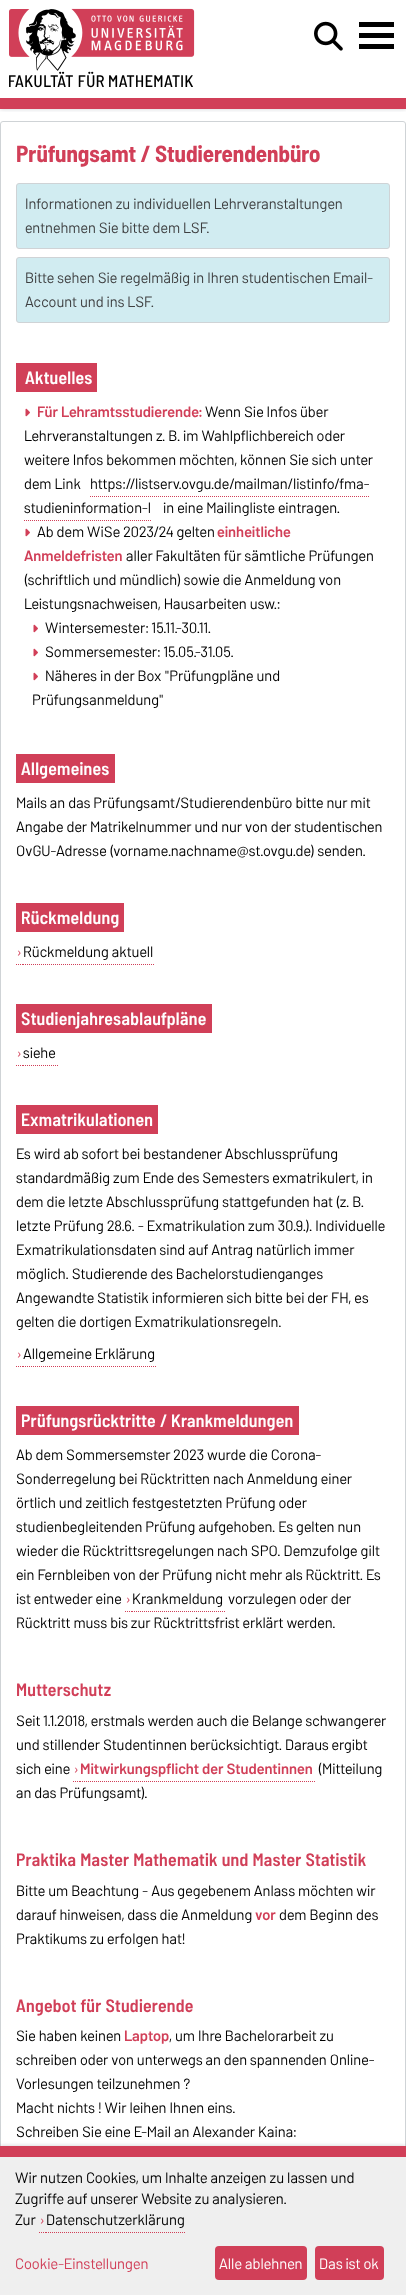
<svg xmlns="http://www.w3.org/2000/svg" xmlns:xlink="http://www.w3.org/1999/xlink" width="406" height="2295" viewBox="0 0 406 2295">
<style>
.cls-1{font:500 16.75px Barlow Semi Condensed;letter-spacing:0.5px;fill:#000000}
.cls-2{font:bold 23.25px Barlow Semi Condensed;fill:#d13f58}
.cls-3{font:14.9px Barlow;fill:#3e3f40}
.cls-4{font:600 18px Barlow Semi Condensed;letter-spacing:0.3px;fill:#ffffff}
.cls-5{font:600 14.9px Barlow;fill:#d13f58}
.cls-6{font:14.9px Barlow;fill:#000000}
.cls-7{font:14px Barlow;fill:#d13f58}
.cls-8{font:600 18px Barlow Semi Condensed;letter-spacing:0.3px;fill:#d13f58}
.cls-9{font:15px Barlow;fill:#000000}
.cls-10{font:15px Barlow;fill:#d13f58}
.cls-11{font:15px Barlow;fill:#ffffff}
</style>
<defs>
<clipPath id="clip1"><rect x="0" y="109" width="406" height="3"/></clipPath>
</defs>
<rect width="100%" height="100%" fill="#ffffff"/>
<g clip-path="url(#clip1)">
<rect fill="#434755" fill-opacity="0.27" filter="blur(2px)" x="0" y="0" width="406" height="109"/>
</g>
<rect fill="#d13f58" x="0" y="98" width="406" height="11"/>
<image xlink:href="image0.png" x="9" y="8" width="186" height="63"/>
<image xlink:href="image1.png" x="314" y="21" width="29" height="30"/>
<rect fill="#000000" x="359" y="22" width="35" height="5"/>
<rect fill="#000000" x="359" y="33" width="35" height="5"/>
<rect fill="#000000" x="359" y="44" width="35" height="5"/>
<rect fill="none" stroke="#cfd3d6" x="0.5" y="121.5" width="405" height="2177" rx="2.5"/>
<rect fill="#d1ecf1" stroke="#cfd3d6" x="16.5" y="183.5" width="373" height="65" rx="2.5"/>
<rect fill="#d1ecf1" stroke="#cfd3d6" x="16.5" y="257.5" width="373" height="65" rx="2.5"/>
<rect fill="#d13f58" x="16" y="363" width="81" height="29"/>
<image xlink:href="image2.png" x="25" y="408" width="5" height="9"/>
<path fill="none" stroke="#d13f58" stroke-dasharray="1 1" d="M90 496.5H369"/>
<path fill="none" stroke="#d13f58" stroke-dasharray="1 1" d="M24 520.5H151"/>
<image xlink:href="image2.png" x="25" y="528" width="5" height="9"/>
<image xlink:href="image2.png" x="33" y="624" width="5" height="9"/>
<image xlink:href="image2.png" x="33" y="648" width="5" height="9"/>
<image xlink:href="image2.png" x="33" y="672" width="5" height="9"/>
<rect fill="#d13f58" x="16" y="754" width="99" height="29"/>
<rect fill="#d13f58" x="16" y="903" width="108" height="29"/>
<path fill="none" stroke="#d13f58" d="M16 964.5H17M18 964.5H19M20 964.5H21M22 964.5H23"/>
<path fill="none" stroke="#d13f58" stroke-dasharray="1 1" d="M23 964.5H155"/>
<rect fill="#d13f58" x="16" y="1004" width="196" height="29"/>
<path fill="none" stroke="#d13f58" d="M16 1065.5H17M18 1065.5H19M20 1065.5H21M22 1065.5H23"/>
<path fill="none" stroke="#d13f58" stroke-dasharray="1 1" d="M23 1065.5H58"/>
<rect fill="#d13f58" x="16" y="1105" width="142" height="29"/>
<path fill="none" stroke="#d13f58" d="M16 1366.5H17M18 1366.5H19M20 1366.5H21M22 1366.5H23"/>
<path fill="none" stroke="#d13f58" stroke-dasharray="1 1" d="M23 1366.5H157"/>
<rect fill="#d13f58" x="16" y="1406" width="283" height="29"/>
<path fill="none" stroke="#d13f58" d="M125 1611.5H126M127 1611.5H128M129 1611.5H130M131 1611.5H132"/>
<path fill="none" stroke="#d13f58" stroke-dasharray="1 1" d="M132 1611.5H225"/>
<path fill="none" stroke="#d13f58" d="M73 1781.5H74M75 1781.5H76M77 1781.5H78M79 1781.5H80"/>
<path fill="none" stroke="#d13f58" stroke-dasharray="1 1" d="M80 1781.5H315"/>
<rect fill="#434755" fill-opacity="0.27" filter="blur(2px)" x="0" y="2146" width="406" height="149"/>
<rect fill="#efefef" x="0" y="2157" width="406" height="138"/>
<rect fill="#d13f58" x="0" y="2146" width="406" height="11"/>
<path fill="none" stroke="#d13f58" d="M39 2232.5H40M41 2232.5H42M43 2232.5H44M45 2232.5H46"/>
<path fill="none" stroke="#d13f58" stroke-dasharray="1 1" d="M46 2232.5H186"/>
<rect fill="#d13f58" x="215" y="2246" width="92" height="34" rx="4"/>
<rect fill="#d13f58" x="315" y="2246" width="69" height="34" rx="4"/>
<text class="cls-1" x="8" y="87">FAKULTÄT FÜR</text>
<text class="cls-1" x="108" y="87">MATHEMATIK</text>
<text class="cls-2" x="16" y="162">Prüfungsamt / Studierendenbüro</text>
<text class="cls-3"><tspan x="25" y="209">Informationen zu individuellen Lehrveranstaltungen</tspan><tspan x="25" y="233">entnehmen Sie bitte dem LSF.</tspan></text>
<text class="cls-3"><tspan x="25" y="283">Bitte sehen Sie regelmäßig in Ihren studentischen Email-</tspan><tspan x="25" y="307">Account und ins LSF.</tspan></text>
<text class="cls-4" x="25" y="384">Aktuelles</text>
<text class="cls-5" x="37" y="417">Für Lehramtsstudierende:</text>
<text class="cls-6" x="205" y="417">Wenn Sie Infos über</text>
<text class="cls-6"><tspan x="24" y="441">Lehrveranstaltungen z. B. im Wahlpflichbereich oder</tspan><tspan x="24" y="465">weitere Infos bekommen möchten, können Sie sich unter</tspan><tspan x="24" y="489">dem Link</tspan></text>
<text class="cls-6" x="90" y="489">https://listserv.ovgu.de/mailman/listinfo/fma-</text>
<text class="cls-6" x="24" y="513">studieninformation-l</text>
<text class="cls-6" x="163" y="513">in eine Mailingliste eintragen.</text>
<text class="cls-6" x="37" y="537">Ab dem WiSe 2023/24 gelten</text>
<text class="cls-5" x="217" y="537">einheitliche</text>
<text class="cls-5" x="24" y="561">Anmeldefristen</text>
<text class="cls-6" x="126" y="561">aller Fakultäten für sämtliche Prüfungen</text>
<text class="cls-6"><tspan x="24" y="585">(schriftlich und mündlich) sowie die Anmeldung von</tspan><tspan x="24" y="609">Leistungsnachweisen, Hausarbeiten usw.:</tspan></text>
<text class="cls-6"><tspan x="45" y="633">Wintersemester: 15.11.-30.11.</tspan><tspan x="45" y="657">Sommersemester: 15.05.-31.05.</tspan><tspan x="45" y="681">Näheres in der Box "Prüfungpläne und</tspan></text>
<text class="cls-6" x="32" y="705">Prüfungsanmeldung"</text>
<text class="cls-4" x="21" y="775">Allgemeines</text>
<text class="cls-6"><tspan x="16" y="808">Mails an das Prüfungsamt/Studierendenbüro bitte nur mit</tspan><tspan x="16" y="832">Angabe der Matrikelnummer und nur von der studentischen</tspan><tspan x="16" y="856">OvGU-Adresse (vorname.nachname@st.ovgu.de) senden.</tspan></text>
<text class="cls-4" x="21" y="924">Rückmeldung</text>
<text class="cls-7" x="17" y="957">›</text>
<text class="cls-6" x="23" y="957">Rückmeldung aktuell</text>
<text class="cls-4" x="21" y="1025">Studienjahresablaufpläne</text>
<text class="cls-7" x="17" y="1058">›</text>
<text class="cls-6" x="23" y="1058">siehe</text>
<text class="cls-4" x="21" y="1126">Exmatrikulationen</text>
<text class="cls-6"><tspan x="16" y="1159">Es wird ab sofort bei bestandener Abschlussprüfung</tspan><tspan x="16" y="1183">standardmäßig zum Ende des Semesters exmatrikulert, in</tspan><tspan x="16" y="1207">dem die letzte Abschlussprüfung stattgefunden hat (z. B.</tspan><tspan x="16" y="1231">letzte Prüfung 28.6. - Exmatrikulation zum 30.9.). Individuelle</tspan><tspan x="16" y="1255">Exmatrikulationsdaten sind auf Antrag natürlich immer</tspan><tspan x="16" y="1279">möglich. Studierende des Bachelorstudienganges</tspan><tspan x="16" y="1303">Angewandte Statistik informieren sich bitte bei der FH, es</tspan><tspan x="16" y="1327">gelten die dortigen Exmatrikulationsregeln.</tspan></text>
<text class="cls-7" x="17" y="1359">›</text>
<text class="cls-6" x="23" y="1359">Allgemeine Erklärung</text>
<text class="cls-4" x="21" y="1427">Prüfungsrücktritte / Krankmeldungen</text>
<text class="cls-6"><tspan x="16" y="1460">Ab dem Sommersemster 2023 wurde die Corona-</tspan><tspan x="16" y="1484">Sonderregelung bei Rücktritten nach Anmeldung einer</tspan><tspan x="16" y="1508">örtlich und zeitlich festgestetzten Prüfung oder</tspan><tspan x="16" y="1532">studienbegleitenden Prüfung aufgehoben. Es gelten nun</tspan><tspan x="16" y="1556">wieder die Rücktrittsregelungen nach SPO. Demzufolge gilt</tspan><tspan x="16" y="1580">ein Fernbleiben von der Prüfung nicht mehr als Rücktritt. Es</tspan><tspan x="16" y="1604">ist entweder eine</tspan></text>
<text class="cls-7" x="126" y="1604">›</text>
<text class="cls-6" x="132" y="1604">Krankmeldung</text>
<text class="cls-6" x="228" y="1604">vorzulegen oder der</text>
<text class="cls-6" x="16" y="1628">Rücktritt muss bis zur Rücktrittsfrist erklärt werden.</text>
<text class="cls-8" x="16" y="1696">Mutterschutz</text>
<text class="cls-6"><tspan x="16" y="1726">Seit 1.1.2018, erstmals werden auch die Belange schwangerer</tspan><tspan x="16" y="1750">und stillender Studentinnen berücksichtigt. Daraus ergibt</tspan><tspan x="16" y="1774">sich eine</tspan></text>
<text class="cls-7" x="74" y="1774">›</text>
<text class="cls-5" x="80" y="1774">Mitwirkungspflicht der Studentinnen</text>
<text class="cls-6" x="318" y="1774">(Mitteilung</text>
<text class="cls-6" x="16" y="1798">an das Prüfungsamt).</text>
<text class="cls-8" x="16" y="1866">Praktika Master Mathematik und Master Statistik</text>
<text class="cls-6"><tspan x="16" y="1896">Bitte um Beachtung - Aus gegebenem Anlass möchten wir</tspan><tspan x="16" y="1920">darauf hinweisen, dass die Anmeldung</tspan></text>
<text class="cls-5" x="255" y="1920">vor</text>
<text class="cls-6" x="279" y="1920">dem Beginn des</text>
<text class="cls-6" x="16" y="1944">Praktikums zu erfolgen hat!</text>
<text class="cls-8" x="16" y="2012">Angebot für Studierende</text>
<text class="cls-6" x="16" y="2041">Sie haben keinen</text>
<text class="cls-5" x="124" y="2041">Laptop</text>
<text class="cls-6" x="169" y="2041">, um Ihre Bachelorarbeit zu</text>
<text class="cls-6"><tspan x="16" y="2065">schreiben oder von unterwegs an den spannenden Online-</tspan><tspan x="16" y="2089">Vorlesungen teilzunehmen ?</tspan><tspan x="16" y="2113">Macht nichts ! Wir leihen Ihnen eins.</tspan><tspan x="16" y="2137">Schreiben Sie eine E-Mail an Alexander Kaina:</tspan></text>
<text class="cls-9"><tspan x="15" y="2183">Wir nutzen Cookies, um Inhalte anzeigen zu lassen und</tspan><tspan x="15" y="2204">Zugriffe auf unserer Website zu analysieren.</tspan><tspan x="15" y="2225">Zur</tspan></text>
<text class="cls-7" x="40" y="2225">›</text>
<text class="cls-9" x="46" y="2225">Datenschutzerklärung</text>
<text class="cls-10" x="15" y="2269">Cookie-Einstellungen</text>
<text class="cls-11" x="219" y="2269">Alle ablehnen</text>
<text class="cls-11" x="319" y="2269">Das ist ok</text>
</svg>
